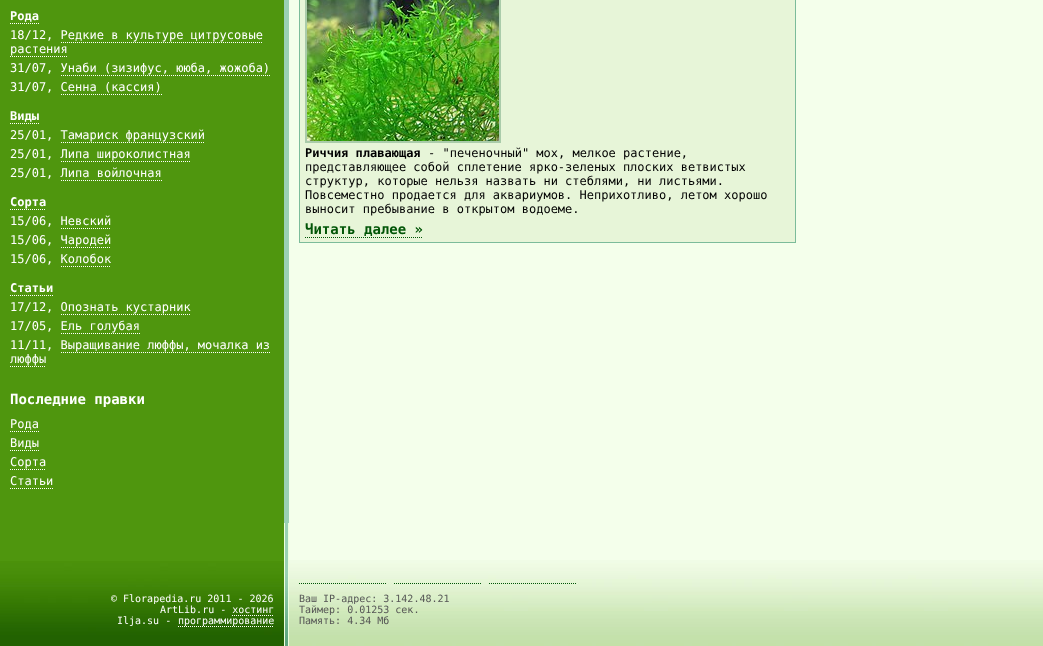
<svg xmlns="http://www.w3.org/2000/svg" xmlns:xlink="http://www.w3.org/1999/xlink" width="1043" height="646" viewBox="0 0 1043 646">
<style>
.cls-1{font:bold 12px DejaVu Sans Mono;fill:#ffffff}
.cls-2{font:12px DejaVu Sans Mono;fill:#ffffff}
.cls-3{font:bold 14px DejaVu Sans Mono;fill:#ffffff}
.cls-4{font:bold 12px DejaVu Sans Mono;fill:#000000}
.cls-5{font:12px DejaVu Sans Mono;fill:#000000}
.cls-6{font:bold 14px DejaVu Sans Mono;fill:#015507}
.cls-7{font:10px DejaVu Sans Mono;fill:#ffffff}
.cls-8{font:10px DejaVu Sans Mono;fill:#555555}
</style>
<rect width="100%" height="100%" fill="#f4ffeb"/>
<rect fill="#4f960e" x="0" y="0" width="284" height="561"/>
<path fill="none" stroke="#ffffff" stroke-dasharray="1 1" d="M10 23.5H39"/>
<path fill="none" stroke="#ffffff" stroke-dasharray="1 1" d="M61 42.5H263"/>
<path fill="none" stroke="#ffffff" stroke-dasharray="1 1" d="M10 56.5H68"/>
<path fill="none" stroke="#ffffff" stroke-dasharray="1 1" d="M61 75.5H270"/>
<path fill="none" stroke="#ffffff" stroke-dasharray="1 1" d="M61 94.5H162"/>
<path fill="none" stroke="#ffffff" stroke-dasharray="1 1" d="M10 123.5H39"/>
<path fill="none" stroke="#ffffff" stroke-dasharray="1 1" d="M61 142.5H205"/>
<path fill="none" stroke="#ffffff" stroke-dasharray="1 1" d="M61 161.5H191"/>
<path fill="none" stroke="#ffffff" stroke-dasharray="1 1" d="M61 180.5H162"/>
<path fill="none" stroke="#ffffff" stroke-dasharray="1 1" d="M10 209.5H46"/>
<path fill="none" stroke="#ffffff" stroke-dasharray="1 1" d="M61 228.5H111"/>
<path fill="none" stroke="#ffffff" stroke-dasharray="1 1" d="M61 247.5H111"/>
<path fill="none" stroke="#ffffff" stroke-dasharray="1 1" d="M61 266.5H111"/>
<path fill="none" stroke="#ffffff" stroke-dasharray="1 1" d="M10 295.5H53"/>
<path fill="none" stroke="#ffffff" stroke-dasharray="1 1" d="M61 314.5H191"/>
<path fill="none" stroke="#ffffff" stroke-dasharray="1 1" d="M61 333.5H140"/>
<path fill="none" stroke="#ffffff" stroke-dasharray="1 1" d="M61 352.5H270"/>
<path fill="none" stroke="#ffffff" stroke-dasharray="1 1" d="M10 366.5H46"/>
<path fill="none" stroke="#ffffff" stroke-dasharray="1 1" d="M10 431.5H39"/>
<path fill="none" stroke="#ffffff" stroke-dasharray="1 1" d="M10 450.5H39"/>
<path fill="none" stroke="#ffffff" stroke-dasharray="1 1" d="M10 469.5H46"/>
<path fill="none" stroke="#ffffff" stroke-dasharray="1 1" d="M10 488.5H53"/>
<rect fill="#9ad1b4" x="284" y="0" width="5" height="523"/>
<rect fill="#e7f5d8" stroke="#7cbc9a" x="299.5" y="-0.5" width="496" height="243"/>
<rect fill="none" stroke="#aaccaa" stroke-width="2" x="306" y="-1" width="194" height="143"/>
<image xlink:href="image0.png" x="307" y="0" width="192" height="141"/>
<path fill="none" stroke="#015507" stroke-dasharray="1 1" d="M305 237.5H423"/>
<image xlink:href="image1.png" x="0" y="561" width="284" height="85"/>
<path fill="none" stroke="#ffffff" stroke-dasharray="1 1" d="M232 615.5H274"/>
<path fill="none" stroke="#ffffff" stroke-dasharray="1 1" d="M178 626.5H274"/>
<image xlink:href="image2.png" x="284" y="523" width="5" height="123"/>
<image xlink:href="image3.png" x="289" y="560" width="754" height="86"/>
<path fill="none" stroke="#015507" stroke-dasharray="1 1" d="M299 583.5H387"/>
<path fill="none" stroke="#015507" stroke-dasharray="1 1" d="M394 583.5H482"/>
<path fill="none" stroke="#015507" stroke-dasharray="1 1" d="M489 583.5H577"/>
<text class="cls-1" x="10" y="20">Рода</text>
<text class="cls-2"><tspan x="10" y="39">18/12, Редкие в культуре цитрусовые</tspan><tspan x="10" y="53">растения</tspan><tspan x="10" y="72">31/07, Унаби (зизифус, ююба, жожоба)</tspan><tspan x="10" y="91">31/07, Сенна (кассия)</tspan></text>
<text class="cls-1" x="10" y="120">Виды</text>
<text class="cls-2"><tspan x="10" y="139">25/01, Тамариск французский</tspan><tspan x="10" y="158">25/01, Липа широколистная</tspan><tspan x="10" y="177">25/01, Липа войлочная</tspan></text>
<text class="cls-1" x="10" y="206">Сорта</text>
<text class="cls-2"><tspan x="10" y="225">15/06, Невский</tspan><tspan x="10" y="244">15/06, Чародей</tspan><tspan x="10" y="263">15/06, Колобок</tspan></text>
<text class="cls-1" x="10" y="292">Статьи</text>
<text class="cls-2"><tspan x="10" y="311">17/12, Опознать кустарник</tspan><tspan x="10" y="330">17/05, Ель голубая</tspan><tspan x="10" y="349">11/11, Выращивание люффы, мочалка из</tspan><tspan x="10" y="363">люффы</tspan></text>
<text class="cls-3" x="10" y="404">Последние правки</text>
<text class="cls-2"><tspan x="10" y="428">Рода</tspan><tspan x="10" y="447">Виды</tspan><tspan x="10" y="466">Сорта</tspan><tspan x="10" y="485">Статьи</tspan></text>
<text class="cls-4" x="305" y="157">Риччия плавающая</text>
<text class="cls-5" x="428" y="157">- "печеночный" мох, мелкое растение,</text>
<text class="cls-5"><tspan x="305" y="171">представляющее собой сплетение ярко-зеленых плоских ветвистых</tspan><tspan x="305" y="185">структур, которые нельзя назвать ни стеблями, ни листьями.</tspan><tspan x="305" y="199">Повсеместно продается для аквариумов. Неприхотливо, летом хорошо</tspan><tspan x="305" y="213">выносит пребывание в открытом водоеме.</tspan></text>
<text class="cls-6" x="305" y="234">Читать далее »</text>
<text class="cls-7" x="111" y="602">© Florapedia.ru 2011 - 2026</text>
<text class="cls-7" x="160" y="613">ArtLib.ru - хостинг</text>
<text class="cls-7" x="117" y="624">Ilja.su -</text>
<text class="cls-7" x="178" y="624">программирование</text>
<text class="cls-8"><tspan x="299" y="602">Ваш IP-адрес: 3.142.48.21</tspan><tspan x="299" y="613">Таймер: 0.01253 сек.</tspan><tspan x="299" y="624">Память: 4.34 Мб</tspan></text>
</svg>
